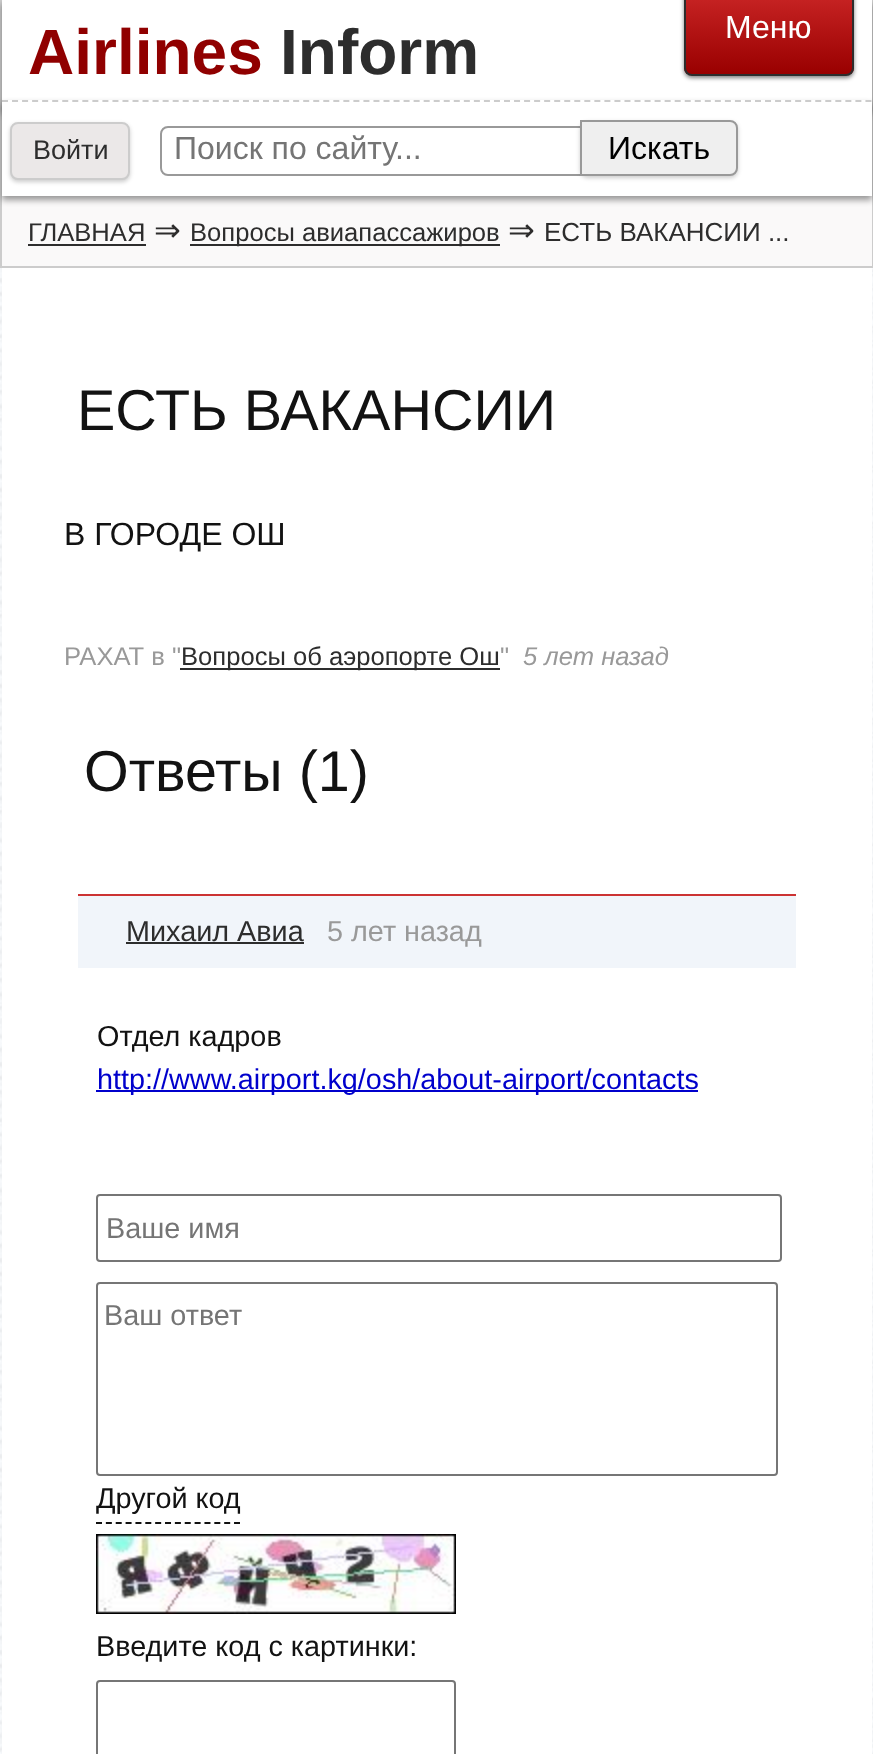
<svg xmlns="http://www.w3.org/2000/svg" xmlns:xlink="http://www.w3.org/1999/xlink" width="873" height="1754" viewBox="0 0 873 1754">
<style>
.cls-1{font:bold 64px Liberation Sans;fill:#900000}
.cls-2{font:bold 64px Liberation Sans;fill:#2d2d2d}
.cls-3{font:32px Liberation Sans;fill:#ffffff}
.cls-4{font:27px Liberation Sans;fill:#2d2d2d}
.cls-5{font:32px Liberation Sans;fill:#757575}
.cls-6{font:32px Liberation Sans;fill:#000000}
.cls-7{font:25.6px Liberation Sans;fill:#2d2d2d}
.cls-8{font:32px DejaVu Sans;fill:#2d2d2d}
.cls-9{font:26px Liberation Sans;fill:#2d2d2d}
.cls-10{font:57.5px Liberation Sans;fill:#121212}
.cls-11{font:32px Liberation Sans;fill:#121212}
.cls-12{font:25.6px Liberation Sans;fill:#999999}
.cls-13{font:italic 25.6px Liberation Sans;fill:#999999}
.cls-14{font:28.8px Liberation Sans;fill:#2d2d2d}
.cls-15{font:28.8px Liberation Sans;fill:#999999}
.cls-16{font:28.8px Liberation Sans;fill:#121212}
.cls-17{font:28.8px Liberation Sans;fill:#0000cc}
.cls-18{font:28.8px Liberation Sans;fill:#757575}
</style>
<defs>
<clipPath id="clip1"><rect x="684" y="-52" width="170" height="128" rx="8"/></clipPath>
<linearGradient id="g1" gradientUnits="userSpaceOnUse" x1="686" y1="-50" x2="686" y2="74"><stop offset="0" stop-color="#e23838"/><stop offset="1" stop-color="#990000"/></linearGradient>
</defs>
<rect width="100%" height="100%" fill="#ffffff"/>
<image xlink:href="image0.png" x="0" y="268" width="873" height="1486"/>
<rect fill="#cccccc" x="872" y="0" width="1" height="268"/>
<rect fill="#cccccc" x="0" y="0" width="2" height="268"/>
<rect fill="#000000" fill-opacity="0.4" filter="blur(3px)" x="2" y="4" width="870" height="110"/>
<rect fill="#ffffff" x="2" y="0" width="870" height="100"/>
<rect fill="#000000" fill-opacity="0.5" filter="blur(2px)" x="684" y="-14" width="170" height="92" rx="8"/>
<g clip-path="url(#clip1)">
<rect fill="url(#g1)" x="684" y="0" width="170" height="74"/>
</g>
<rect fill="none" stroke="#2d2d2d" stroke-width="2" x="685" y="-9" width="168" height="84" rx="7"/>
<rect fill="#faf9f9" x="2" y="196" width="870" height="70"/>
<rect fill="#000000" fill-opacity="0.4" filter="blur(3px)" x="2" y="104" width="870" height="96"/>
<rect fill="#ffffff" x="2" y="100" width="870" height="96"/>
<path fill="none" stroke="#cccccc" stroke-width="2" stroke-dasharray="6 4.04" d="M2 101H872"/>
<rect fill="#000000" fill-opacity="0.2" filter="blur(2px)" x="10" y="124" width="120" height="58" rx="8"/>
<rect fill="#ebe8e8" stroke="#cccccc" stroke-width="2" x="11" y="123" width="118" height="56" rx="7"/>
<path fill="none" stroke="#999999" stroke-width="2" d="M168 127H603V175H168C164 175 161 172 161 168V134C161 130 164 127 168 127Z"/>
<rect fill="#000000" fill-opacity="0.2" filter="blur(2px)" x="580" y="122" width="158" height="56" rx="8"/>
<path fill="#efefef" stroke="#999999" stroke-width="2" d="M581 121H730C734 121 737 124 737 128V168C737 172 734 175 730 175H581Z"/>
<rect fill="#cccccc" x="2" y="266" width="870" height="2"/>
<rect fill="#2d2d2d" x="28" y="244" width="118" height="2"/>
<rect fill="#2d2d2d" x="190" y="244" width="310" height="2"/>
<rect fill="#ffffff" x="2" y="268" width="870" height="1486"/>
<rect fill="#2d2d2d" x="180" y="668" width="320" height="2"/>
<rect fill="#f1f5fa" x="78" y="896" width="718" height="72"/>
<rect fill="#cc3333" x="78" y="894" width="718" height="2"/>
<rect fill="#2d2d2d" x="126" y="942" width="178" height="2"/>
<rect fill="#0000cc" x="96" y="1090" width="602" height="2"/>
<rect fill="none" stroke="#767676" stroke-width="2" x="97" y="1195" width="684" height="66" rx="3"/>
<rect fill="none" stroke="#767676" stroke-width="2" x="97" y="1283" width="680" height="192" rx="3"/>
<path fill="none" stroke="#121212" stroke-width="2" stroke-dasharray="6 3.86" d="M96 1523H240"/>
<image xlink:href="image1.png" x="96" y="1534" width="360" height="80"/>
<rect fill="none" stroke="#767676" stroke-width="2" x="97" y="1681" width="358" height="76" rx="3"/>
<text class="cls-1" x="28" y="74">Airlines</text>
<text class="cls-2" x="280" y="74">Inform</text>
<text class="cls-3" x="725" y="38">Меню</text>
<text class="cls-4" x="33" y="159">Войти</text>
<text class="cls-5" x="174" y="159">Поиск по сайту...</text>
<text class="cls-6" x="608" y="159">Искать</text>
<text class="cls-7" x="28" y="241">ГЛАВНАЯ</text>
<text class="cls-8" x="154" y="241">⇒</text>
<text class="cls-7" x="190" y="241">Вопросы авиапассажиров</text>
<text class="cls-8" x="508" y="241">⇒</text>
<text class="cls-9" x="544" y="241">ЕСТЬ ВАКАНСИИ ...</text>
<text class="cls-10" x="77" y="430">ЕСТЬ ВАКАНСИИ</text>
<text class="cls-11" x="64" y="545">В ГОРОДЕ ОШ</text>
<text class="cls-12" x="64" y="665">РАХАТ в "</text>
<text class="cls-7" x="181" y="665">Вопросы об аэропорте Ош</text>
<text class="cls-12" x="500" y="665">"</text>
<text class="cls-13" x="523" y="665">5 лет назад</text>
<text class="cls-10" x="84" y="791">Ответы (1)</text>
<text class="cls-14" x="126" y="941">Михаил Авиа</text>
<text class="cls-15" x="327" y="941">5 лет назад</text>
<text class="cls-16" x="97" y="1046">Отдел кадров</text>
<text class="cls-17" x="97" y="1089">http://www.airport.kg/osh/about-airport/contacts</text>
<text class="cls-18" x="106" y="1238">Ваше имя</text>
<text class="cls-18" x="104" y="1325">Ваш ответ</text>
<text class="cls-16" x="96" y="1508">Другой код</text>
<text class="cls-16" x="96" y="1656">Введите код с картинки:</text>
</svg>
